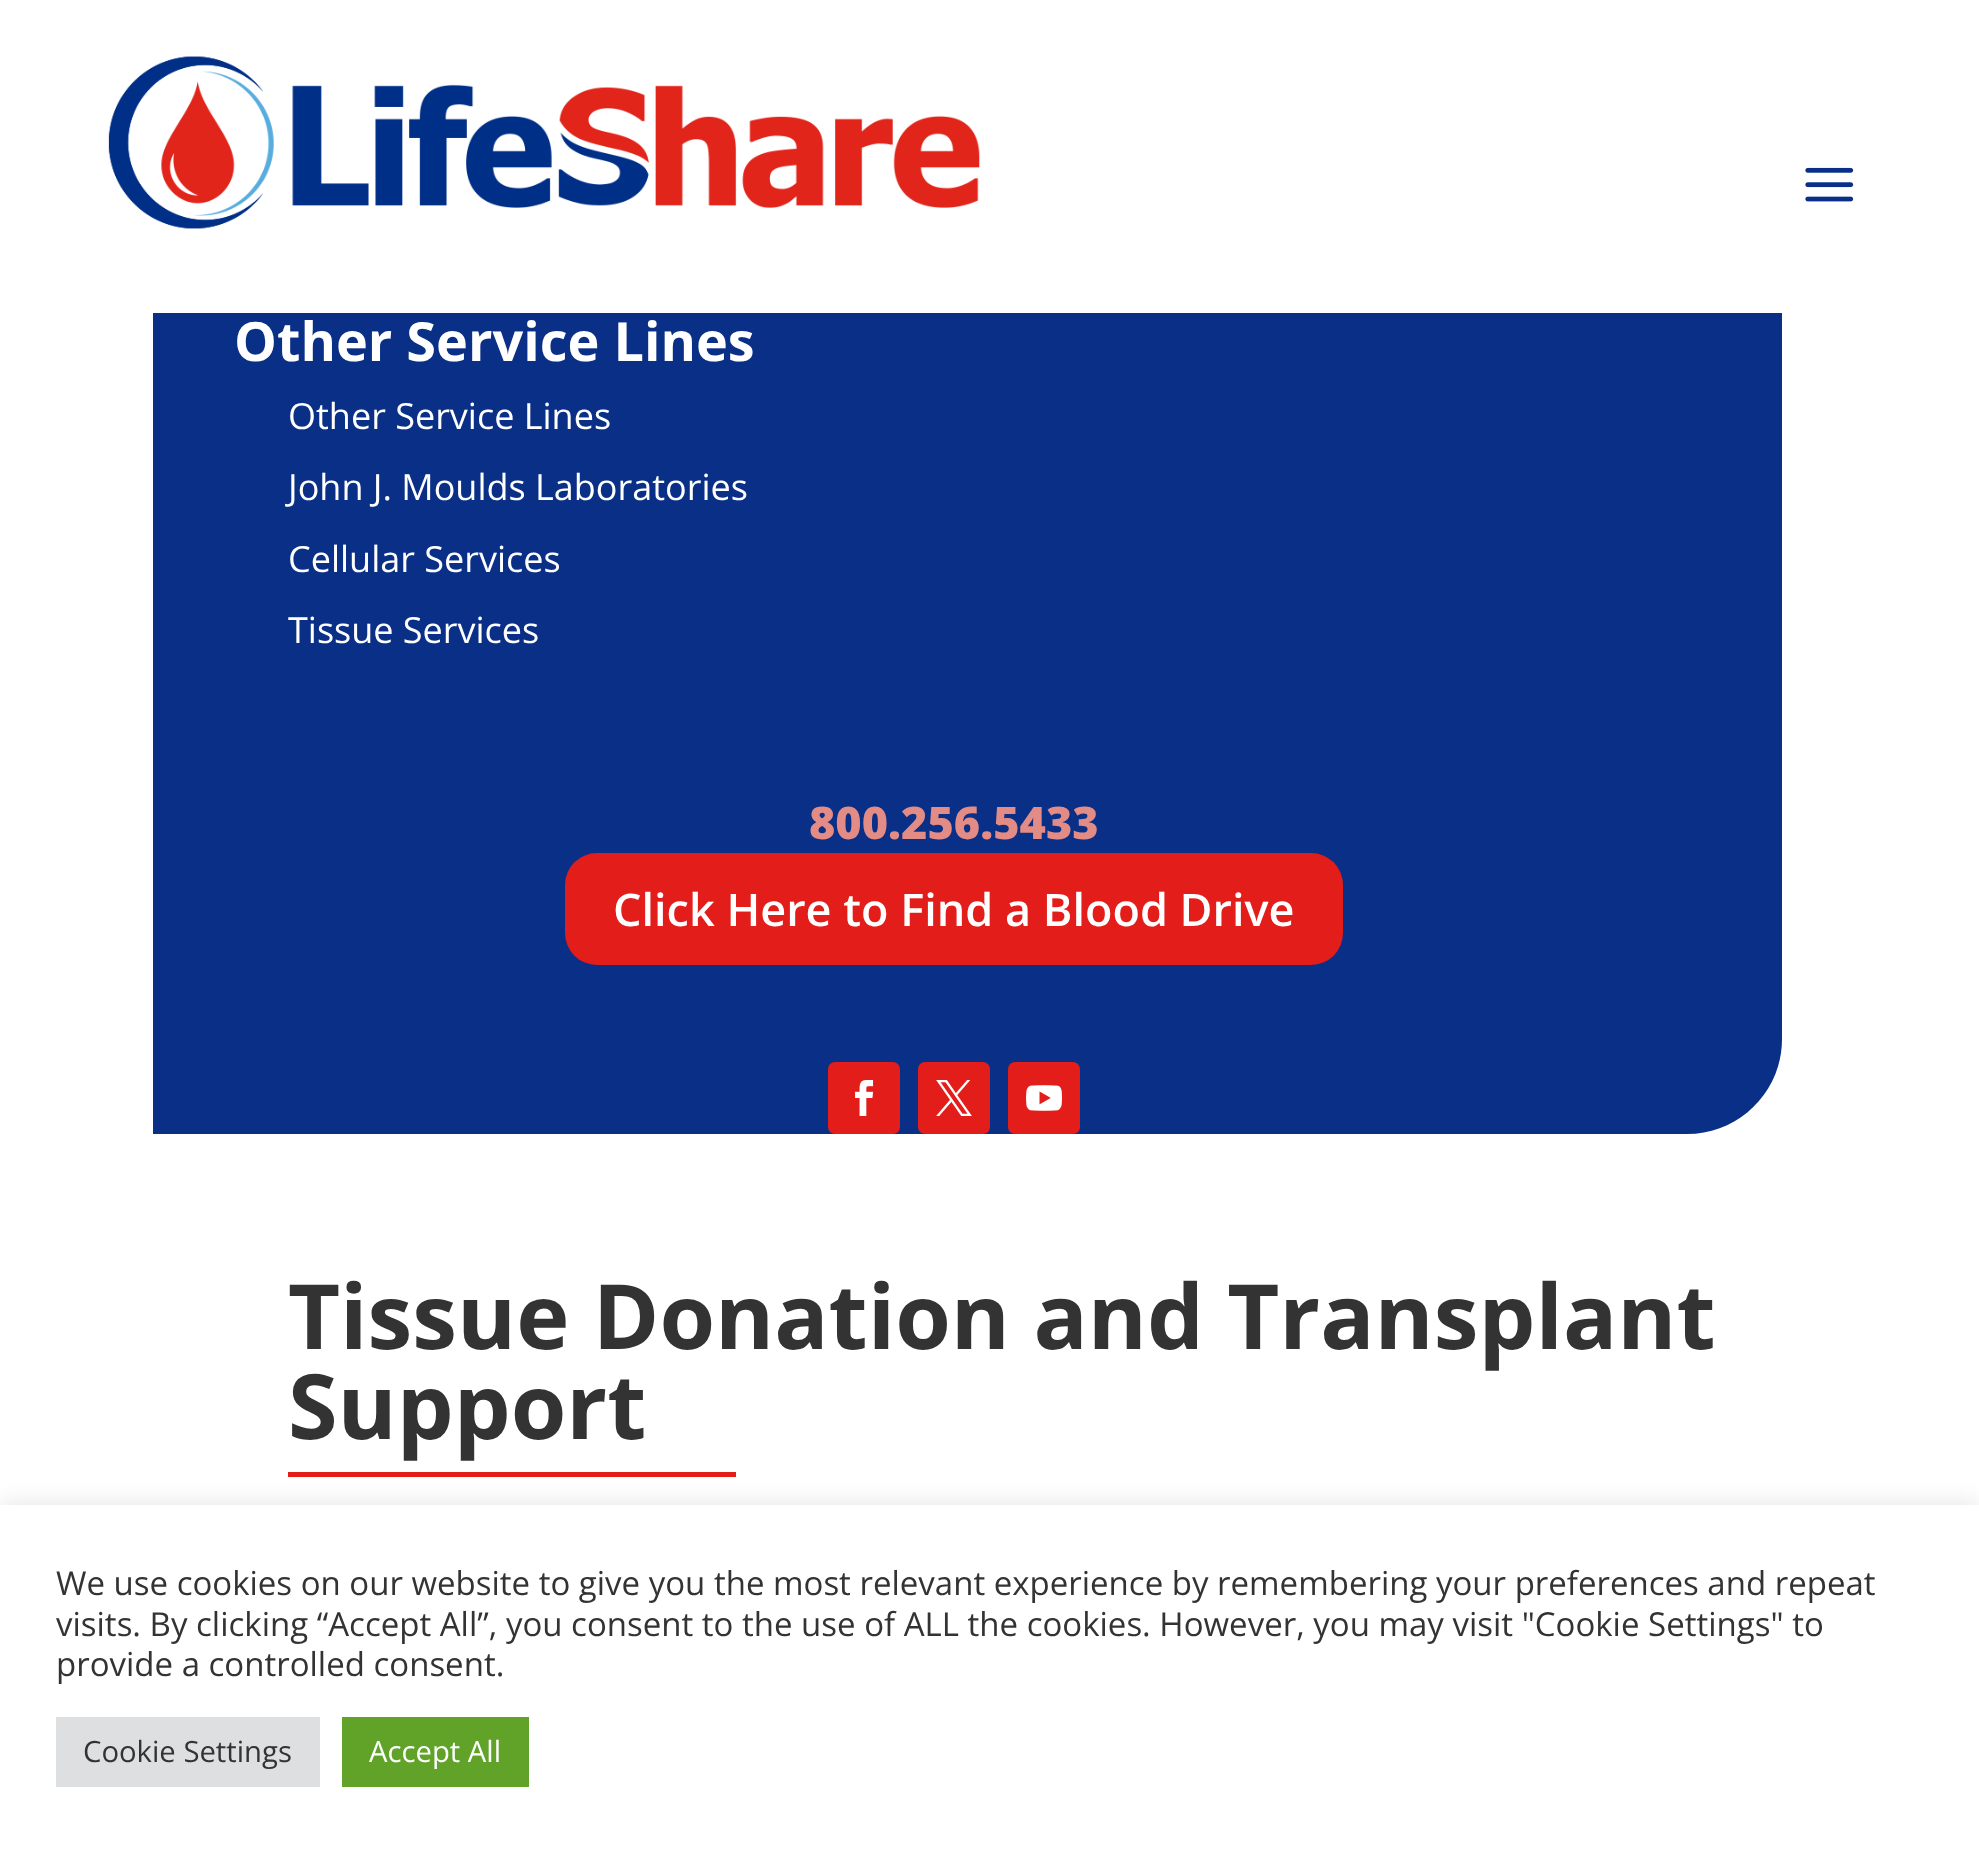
<svg xmlns="http://www.w3.org/2000/svg" xmlns:xlink="http://www.w3.org/1999/xlink" width="1979" height="1852" viewBox="0 0 1979 1852">
<style>
.cls-1{font:bold 54px Open Sans;fill:#ffffff}
.cls-2{font:36px Open Sans;fill:#ffffff}
.cls-3{font:800 45px Open Sans;fill:#e28c85}
.cls-4{font:600 45px Open Sans;fill:#ffffff}
.cls-5{font:bold 90px Open Sans;fill:#333333}
.cls-6{font:33px Open Sans;fill:#333333}
.cls-7{font:29.25px Open Sans;fill:#333333}
.cls-8{font:29.25px Open Sans;fill:#ffffff}
</style>
<rect width="100%" height="100%" fill="#ffffff"/>
<image xlink:href="image0.png" x="108" y="56" width="872" height="173"/>
<image xlink:href="image1.png" x="1805" y="167" width="49" height="35"/>
<rect fill="#092f87" x="153" y="313" width="45" height="821"/>
<path fill="#092f87" d="M198 313H1782V1039C1782 1091.5 1739.5 1134 1687 1134H198Z"/>
<rect fill="#e31d1a" x="565" y="853" width="778" height="112" rx="32"/>
<rect fill="#e31d1a" x="828" y="1062" width="72" height="72" rx="7"/>
<image xlink:href="image2.png" x="855" y="1080" width="19" height="36"/>
<rect fill="#e31d1a" x="918" y="1062" width="72" height="72" rx="7"/>
<image xlink:href="image3.png" x="936" y="1080" width="36" height="36"/>
<rect fill="#e31d1a" x="1008" y="1062" width="72" height="72" rx="7"/>
<image xlink:href="image4.png" x="1026" y="1085" width="36" height="26"/>
<rect fill="#e31d1a" x="288" y="1472" width="448" height="5"/>
<rect fill="#acabab" fill-opacity="0.3" filter="blur(11px)" x="0" y="1503" width="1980" height="349"/>
<rect fill="#ffffff" x="0" y="1505" width="1979" height="347"/>
<rect fill="#dedfe0" x="56" y="1717" width="264" height="70"/>
<rect fill="#61a229" x="342" y="1717" width="187" height="70"/>
<text class="cls-1" x="234" y="361">Other Service Lines</text>
<text class="cls-2"><tspan x="288" y="429">Other Service Lines</tspan><tspan x="288" y="500">John J. Moulds Laboratories</tspan></text>
<text class="cls-2"><tspan x="288" y="572">Cellular Services</tspan><tspan x="288" y="643">Tissue Services</tspan></text>
<text class="cls-3" x="809" y="839">800.256.5433</text>
<text class="cls-4" x="613" y="926">Click Here to Find a Blood Drive</text>
<text class="cls-5"><tspan x="288" y="1349">Tissue Donation and Transplant</tspan><tspan x="288" y="1439">Support</tspan></text>
<text class="cls-6"><tspan x="56" y="1595">We use cookies on our website to give you the most relevant experience by remembering your preferences and repeat</tspan><tspan x="56" y="1636">visits. By clicking “Accept All”, you consent to the use of ALL the cookies. However, you may visit "Cookie Settings" to</tspan><tspan x="56" y="1676">provide a controlled consent.</tspan></text>
<text class="cls-7" x="83" y="1762">Cookie Settings</text>
<text class="cls-8" x="369" y="1762">Accept All</text>
</svg>
